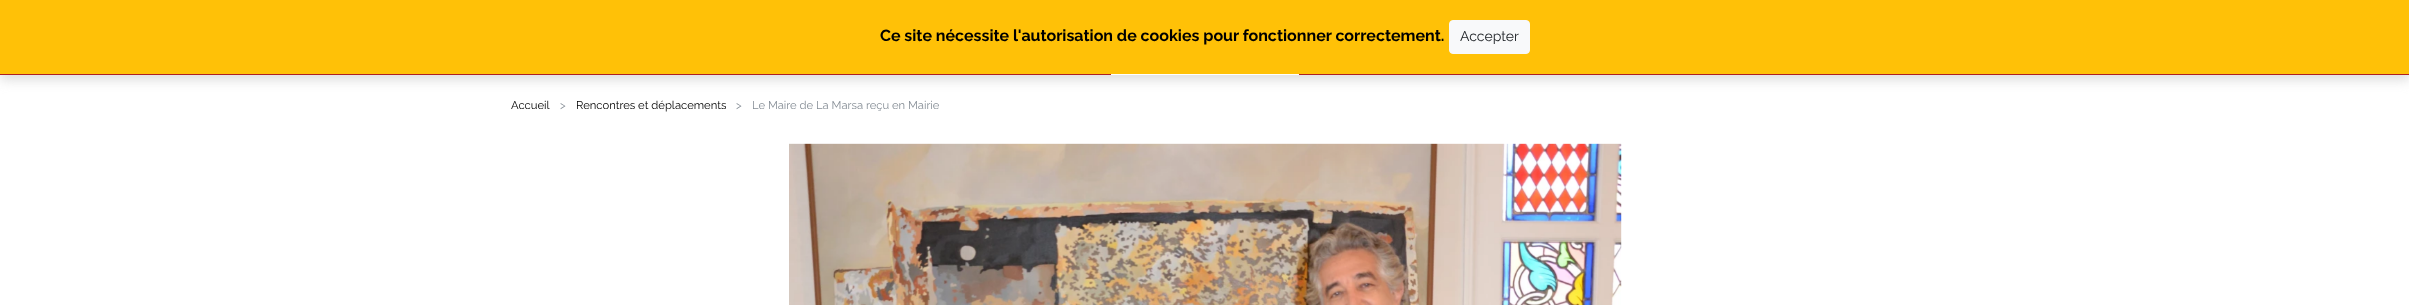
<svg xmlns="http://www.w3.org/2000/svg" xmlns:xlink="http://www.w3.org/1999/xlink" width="2409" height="305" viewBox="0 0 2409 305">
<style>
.cls-1{font:bold 16px Raleway;fill:#000000}
.cls-2{font:14px Raleway;fill:#212529}
.cls-3{font:11.25px Raleway;fill:#000000}
.cls-4{font:11.25px Raleway;fill:#868e96}
</style>
<rect width="100%" height="100%" fill="#ffffff"/>
<rect fill="#dddddd" filter="blur(6px)" x="0" y="5" width="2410" height="75"/>
<rect fill="#ffc107" x="0" y="0" width="2409" height="74"/>
<rect fill="#f8f9fa" stroke="#f8f9fa" x="1449.5" y="20.5" width="80" height="33" rx="3.5"/>
<rect fill="#ae2021" x="0" y="74" width="2409" height="1"/>
<image xlink:href="image0.png" x="1111" y="74" width="188" height="1"/>
<image xlink:href="image1.png" x="789" y="143" width="833" height="162"/>
<text class="cls-1" x="880" y="41">Ce site nécessite l'autorisation de cookies pour fonctionner correctement.</text>
<text class="cls-2" x="1460" y="41">Accepter</text>
<text class="cls-3" x="511" y="109">Accueil</text>
<text class="cls-4" x="560" y="109">&gt;</text>
<text class="cls-3" x="576" y="109">Rencontres et déplacements</text>
<text class="cls-4" x="736" y="109">&gt;</text>
<text class="cls-4" x="752" y="109">Le Maire de La Marsa reçu en Mairie</text>
</svg>
